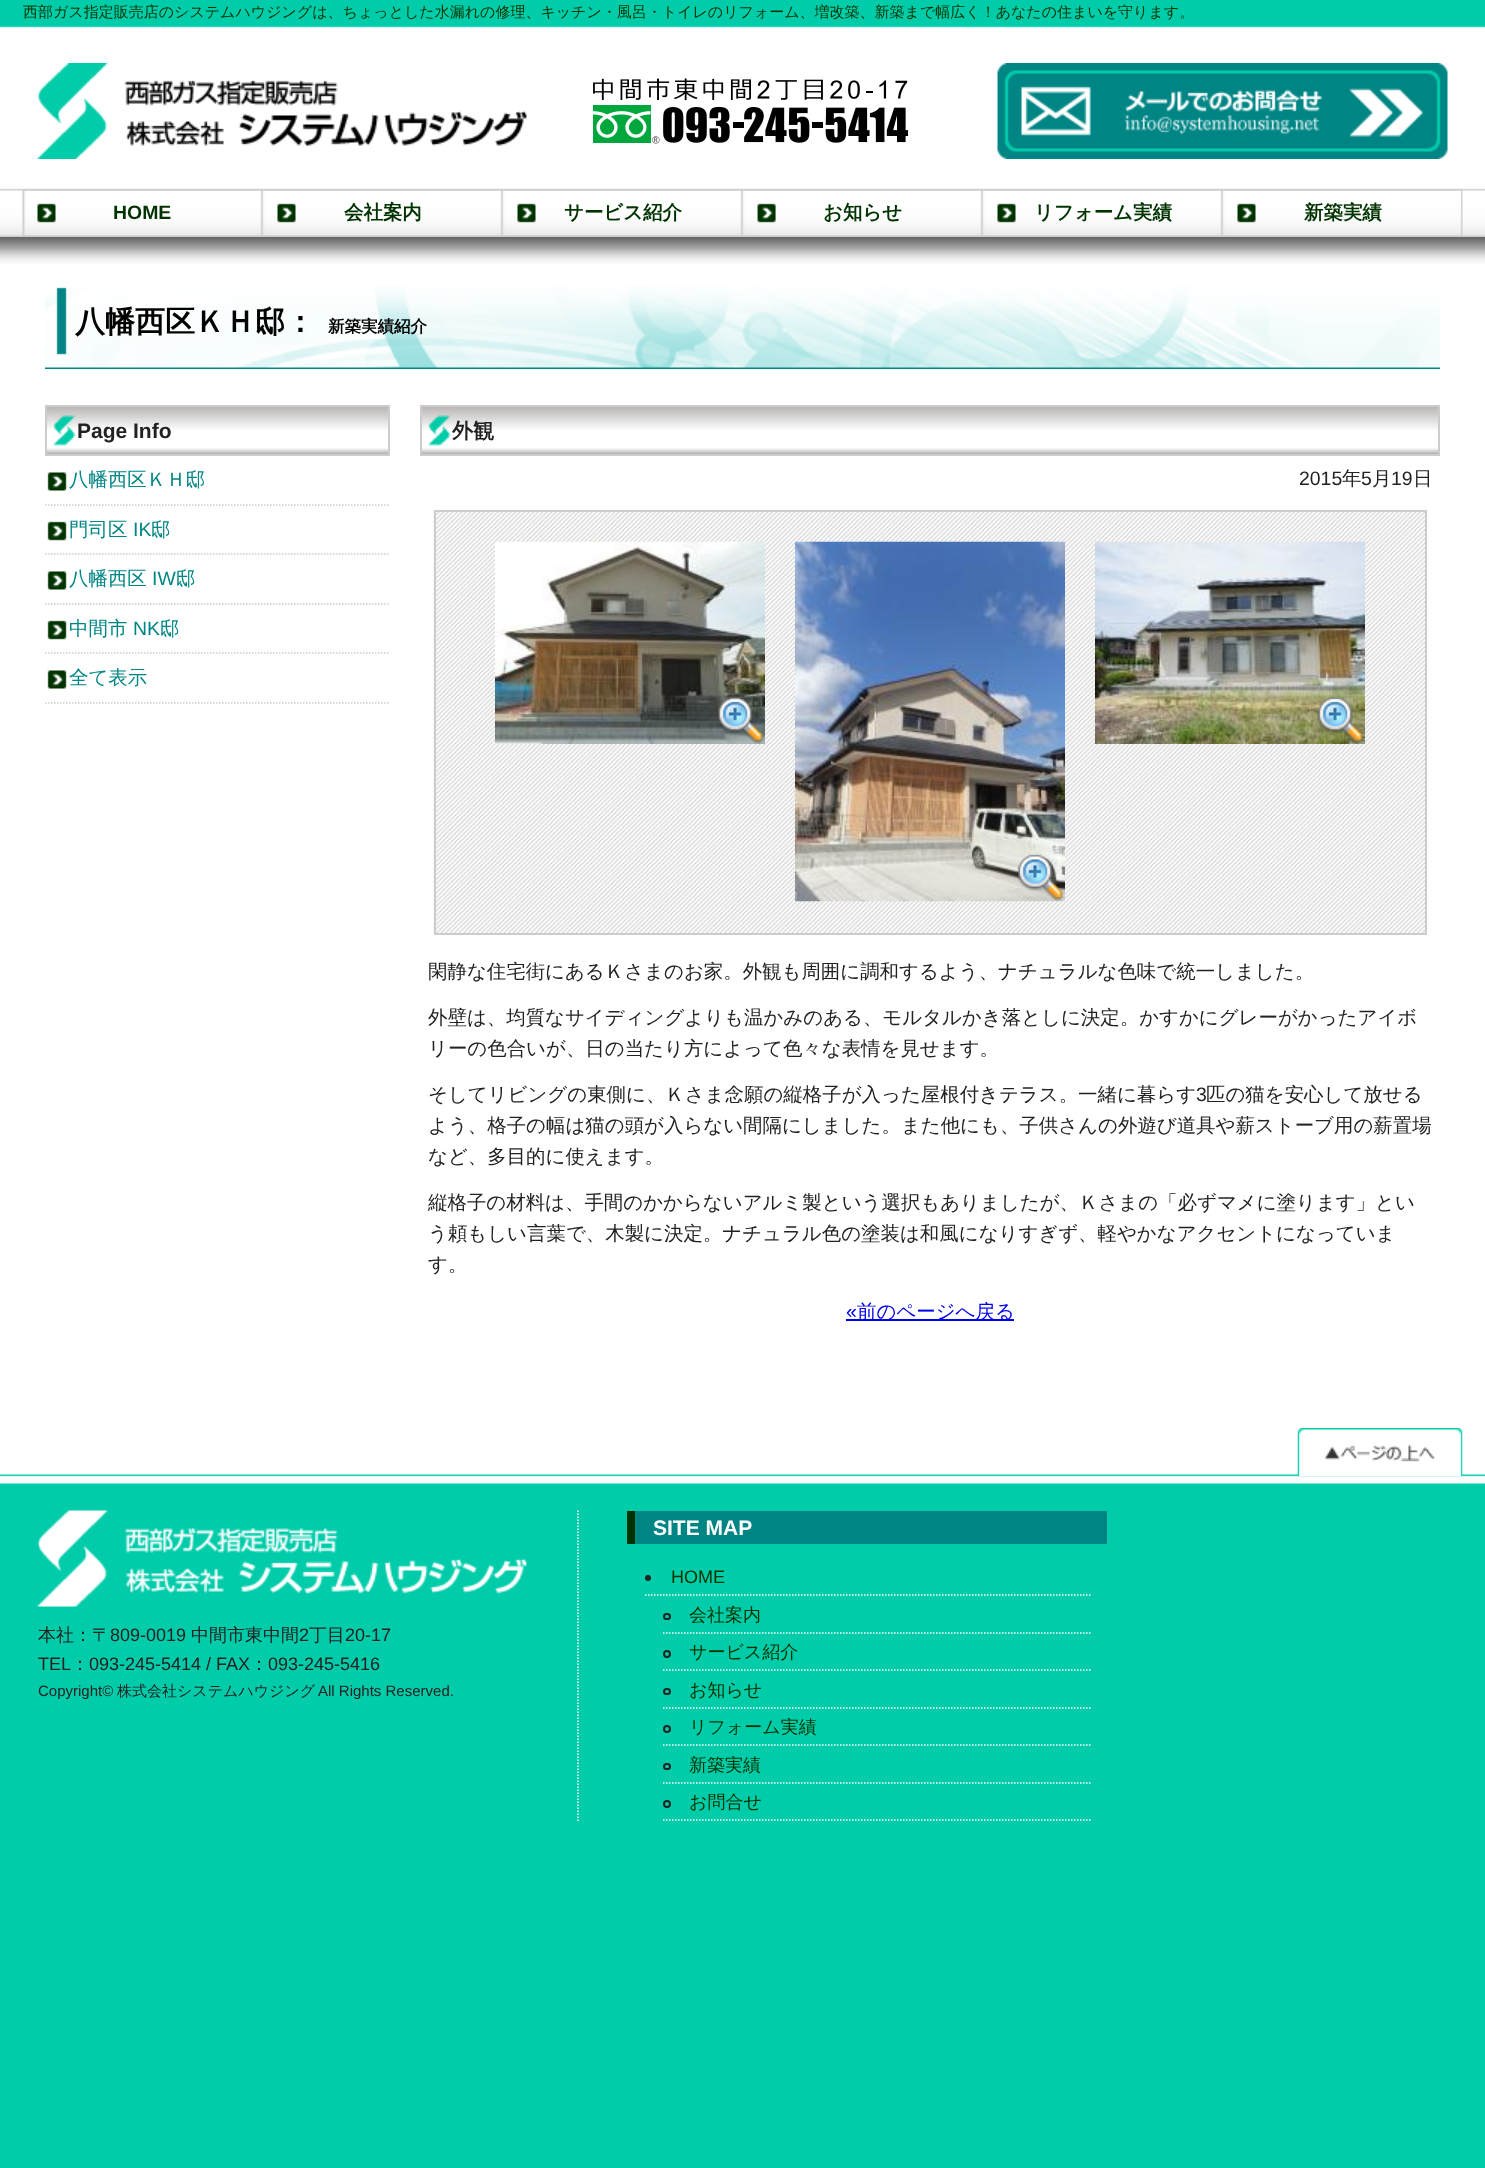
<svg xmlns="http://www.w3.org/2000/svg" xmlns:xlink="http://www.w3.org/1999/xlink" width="1485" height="2168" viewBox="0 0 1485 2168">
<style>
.cls-1{font:500 15px WenQuanYi Zen Hei;fill:#003300}
.cls-2{font:bold 19.45px Liberation Sans;fill:#003300}
.cls-3{font:bold 19.45px WenQuanYi Zen Hei;fill:#003300}
.cls-4{font:bold 30px WenQuanYi Zen Hei;fill:#000000}
.cls-5{font:bold 16.5px WenQuanYi Zen Hei;fill:#000000}
.cls-6{font:bold 21px Liberation Sans;fill:#222222}
.cls-7{font:500 19.45px WenQuanYi Zen Hei;fill:#008585}
.cls-8{font:19.45px Liberation Sans;fill:#008585}
.cls-9{font:bold 21px WenQuanYi Zen Hei;fill:#222222}
.cls-10{font:19.45px Liberation Sans;fill:#222222}
.cls-11{font:500 19.45px WenQuanYi Zen Hei;fill:#222222}
.cls-12{font:19.45px Liberation Sans;fill:#0000ee}
.cls-13{font:500 19.45px WenQuanYi Zen Hei;fill:#0000ee}
.cls-14{font:500 18px WenQuanYi Zen Hei;fill:#222222}
.cls-15{font:18px Liberation Sans;fill:#222222}
.cls-16{font:15px Liberation Sans;fill:#222222}
.cls-17{font:500 15px WenQuanYi Zen Hei;fill:#222222}
.cls-18{font:bold 21px Liberation Sans;fill:#ffffff}
.cls-19{font:18px Liberation Sans;fill:#003300}
.cls-20{font:500 18px WenQuanYi Zen Hei;fill:#003300}
</style>
<rect width="100%" height="100%" fill="#00ccaa"/>
<image xlink:href="image0.png" x="0" y="26" width="1485" height="211"/>
<image xlink:href="image1.png" x="37" y="63" width="490" height="96"/>
<image xlink:href="image2.png" x="593" y="78" width="316" height="66"/>
<image xlink:href="image3.png" x="997" y="63" width="451" height="96"/>
<image xlink:href="image4.png" x="22" y="189" width="1441" height="47"/>
<image xlink:href="image5.png" x="37" y="203" width="19" height="20"/>
<image xlink:href="image5.png" x="277" y="203" width="19" height="20"/>
<image xlink:href="image5.png" x="517" y="203" width="19" height="20"/>
<image xlink:href="image6.png" x="757" y="203" width="19" height="20"/>
<image xlink:href="image5.png" x="997" y="203" width="19" height="20"/>
<image xlink:href="image5.png" x="1237" y="203" width="19" height="20"/>
<rect fill="#ffffff" x="0" y="264" width="1485" height="1211"/>
<image xlink:href="image7.png" x="0" y="237" width="1485" height="27"/>
<image xlink:href="image8.png" x="45" y="286" width="1395" height="83"/>
<image xlink:href="image9.png" x="47" y="407" width="341" height="47"/>
<rect fill="none" stroke="#cccccc" stroke-width="2" x="46" y="406" width="343" height="49"/>
<path fill="none" stroke="#cccccc" stroke-width="1.5" stroke-dasharray="1.5 1.5" d="M45 505H390"/>
<image xlink:href="image10.png" x="47" y="472" width="20" height="19"/>
<path fill="none" stroke="#cccccc" stroke-width="1.5" stroke-dasharray="1.5 1.5" d="M45 554H390"/>
<image xlink:href="image11.png" x="47" y="521" width="20" height="20"/>
<path fill="none" stroke="#cccccc" stroke-width="1.5" stroke-dasharray="1.5 1.5" d="M45 604H390"/>
<image xlink:href="image10.png" x="47" y="571" width="20" height="19"/>
<path fill="none" stroke="#cccccc" stroke-width="1.5" stroke-dasharray="1.5 1.5" d="M45 653H390"/>
<image xlink:href="image11.png" x="47" y="620" width="20" height="20"/>
<path fill="none" stroke="#cccccc" stroke-width="1.5" stroke-dasharray="1.5 1.5" d="M45 703H390"/>
<image xlink:href="image10.png" x="47" y="670" width="20" height="19"/>
<image xlink:href="image12.png" x="422" y="407" width="1016" height="47"/>
<rect fill="none" stroke="#cccccc" stroke-width="2" x="421" y="406" width="1018" height="49"/>
<image xlink:href="image13.png" x="433" y="510" width="992" height="425"/>
<rect fill="none" stroke="#cccccc" stroke-width="2" x="435" y="511" width="991" height="423"/>
<image xlink:href="image14.png" x="495" y="541" width="270" height="203"/>
<image xlink:href="image15.png" x="717" y="697" width="47" height="47"/>
<image xlink:href="image16.png" x="795" y="541" width="270" height="361"/>
<image xlink:href="image17.png" x="1017" y="854" width="47" height="47"/>
<image xlink:href="image18.png" x="1095" y="541" width="270" height="203"/>
<image xlink:href="image19.png" x="1317" y="697" width="47" height="47"/>
<rect fill="#0000ee" x="846" y="1319" width="168" height="2"/>
<image xlink:href="image20.png" x="0" y="1474" width="1485" height="10"/>
<image xlink:href="image21.png" x="1297" y="1428" width="166" height="48"/>
<image xlink:href="image22.png" x="37" y="1510" width="490" height="97"/>
<path fill="none" stroke="#ffffff" stroke-width="1.5" stroke-dasharray="1.5 1.5" d="M578 1510.5V1821"/>
<rect fill="#008585" x="635" y="1511" width="472" height="33"/>
<rect fill="#003300" x="627" y="1511" width="8" height="33"/>
<path fill="none" stroke="#ffffff" stroke-width="1.5" stroke-dasharray="1.5 1.5" d="M645 1595H1092"/>
<circle fill="#222222" cx="648" cy="1578" r="3"/>
<path fill="none" stroke="#ffffff" stroke-width="1.5" stroke-dasharray="1.5 1.5" d="M663 1633H1092"/>
<rect fill="none" stroke="#222222" stroke-width="2" x="664" y="1614" width="6" height="5" rx="2.5"/>
<path fill="none" stroke="#ffffff" stroke-width="1.5" stroke-dasharray="1.5 1.5" d="M663 1670H1092"/>
<circle fill="none" stroke="#222222" stroke-width="2" cx="667" cy="1654" r="3"/>
<path fill="none" stroke="#ffffff" stroke-width="1.5" stroke-dasharray="1.5 1.5" d="M663 1708H1092"/>
<rect fill="none" stroke="#222222" stroke-width="2" x="664" y="1689" width="6" height="5" rx="2.5"/>
<path fill="none" stroke="#ffffff" stroke-width="1.5" stroke-dasharray="1.5 1.5" d="M663 1745H1092"/>
<circle fill="none" stroke="#222222" stroke-width="2" cx="667" cy="1729" r="3"/>
<path fill="none" stroke="#ffffff" stroke-width="1.5" stroke-dasharray="1.5 1.5" d="M663 1783H1092"/>
<rect fill="none" stroke="#222222" stroke-width="2" x="664" y="1764" width="6" height="5" rx="2.5"/>
<path fill="none" stroke="#ffffff" stroke-width="1.5" stroke-dasharray="1.5 1.5" d="M663 1820H1092"/>
<circle fill="none" stroke="#222222" stroke-width="2" cx="667" cy="1804" r="3"/>
<text class="cls-1" x="23" y="17">西部ガス指定販売店のシステムハウジングは、ちょっとした水漏れの修理、キッチン・風呂・トイレのリフォーム、増改築、新築まで幅広く！あなたの住まいを守ります。</text>
<text class="cls-2" x="113" y="219">HOME</text>
<text class="cls-3" x="344" y="219">会社案内</text>
<text class="cls-3" x="564" y="219">サービス紹介</text>
<text class="cls-3" x="823" y="219">お知らせ</text>
<text class="cls-3" x="1034" y="219">リフォーム実績</text>
<text class="cls-3" x="1304" y="219">新築実績</text>
<text class="cls-4" x="75" y="332">八幡西区ＫＨ邸：</text>
<text class="cls-5" x="328" y="332">新築実績紹介</text>
<text class="cls-6" x="77" y="438">Page Info</text>
<text class="cls-7" x="69" y="486">八幡西区ＫＨ邸</text>
<text class="cls-7" x="69" y="536">門司区</text>
<text class="cls-8" x="133" y="536">IK</text>
<text class="cls-7" x="151" y="536">邸</text>
<text class="cls-7" x="69" y="585">八幡西区</text>
<text class="cls-8" x="152" y="585">IW</text>
<text class="cls-7" x="176" y="585">邸</text>
<text class="cls-7" x="69" y="635">中間市</text>
<text class="cls-8" x="133" y="635">NK</text>
<text class="cls-7" x="160" y="635">邸</text>
<text class="cls-7" x="69" y="684">全て表示</text>
<text class="cls-9" x="452" y="438">外観</text>
<text class="cls-10" x="1299" y="485">2015</text>
<text class="cls-11" x="1342" y="485">年</text>
<text class="cls-10" x="1361" y="485">5</text>
<text class="cls-11" x="1372" y="485">月</text>
<text class="cls-10" x="1391" y="485">19</text>
<text class="cls-11" x="1413" y="485">日</text>
<text class="cls-11" x="428" y="978">閑静な住宅街にあるＫさまのお家。外観も周囲に調和するよう、ナチュラルな色味で統一しました。</text>
<text class="cls-11"><tspan x="428" y="1024">外壁は、均質なサイディングよりも温かみのある、モルタルかき落としに決定。かすかにグレーがかったアイボ</tspan><tspan x="428" y="1055">リーの色合いが、日の当たり方によって色々な表情を見せます。</tspan></text>
<text class="cls-11" x="428" y="1101">そしてリビングの東側に、Ｋさま念願の縦格子が入った屋根付きテラス。一緒に暮らす</text>
<text class="cls-10" x="1196" y="1101">3</text>
<text class="cls-11" x="1206" y="1101">匹の猫を安心して放せる</text>
<text class="cls-11"><tspan x="428" y="1132">よう、格子の幅は猫の頭が入らない間隔にしました。また他にも、子供さんの外遊び道具や薪ストーブ用の薪置場</tspan><tspan x="428" y="1163">など、多目的に使えます。</tspan></text>
<text class="cls-11"><tspan x="428" y="1209">縦格子の材料は、手間のかからないアルミ製という選択もありましたが、Ｋさまの「必ずマメに塗ります」とい</tspan><tspan x="428" y="1240">う頼もしい言葉で、木製に決定。ナチュラル色の塗装は和風になりすぎず、軽やかなアクセントになっていま</tspan><tspan x="428" y="1271">す。</tspan></text>
<text class="cls-12" x="846" y="1318">«</text>
<text class="cls-13" x="857" y="1318">前のページへ戻る</text>
<text class="cls-14" x="38" y="1641">本社：〒</text>
<text class="cls-15" x="110" y="1641">809-0019</text>
<text class="cls-14" x="191" y="1641">中間市東中間</text>
<text class="cls-15" x="299" y="1641">2</text>
<text class="cls-14" x="309" y="1641">丁目</text>
<text class="cls-15" x="345" y="1641">20-17</text>
<text class="cls-15" x="38" y="1670">TEL</text>
<text class="cls-14" x="71" y="1670">：</text>
<text class="cls-15" x="89" y="1670">093-245-5414 / FAX</text>
<text class="cls-14" x="250" y="1670">：</text>
<text class="cls-15" x="268" y="1670">093-245-5416</text>
<text class="cls-16" x="38" y="1696">Copyright©</text>
<text class="cls-17" x="117" y="1696">株式会社システムハウジング</text>
<text class="cls-16" x="318" y="1696">All Rights Reserved.</text>
<text class="cls-18" x="653" y="1535">SITE MAP</text>
<text class="cls-19" x="671" y="1583">HOME</text>
<text class="cls-20" x="689" y="1621">会社案内</text>
<text class="cls-20" x="689" y="1658">サービス紹介</text>
<text class="cls-20" x="689" y="1696">お知らせ</text>
<text class="cls-20" x="689" y="1733">リフォーム実績</text>
<text class="cls-20" x="689" y="1771">新築実績</text>
<text class="cls-20" x="689" y="1808">お問合せ</text>
</svg>
